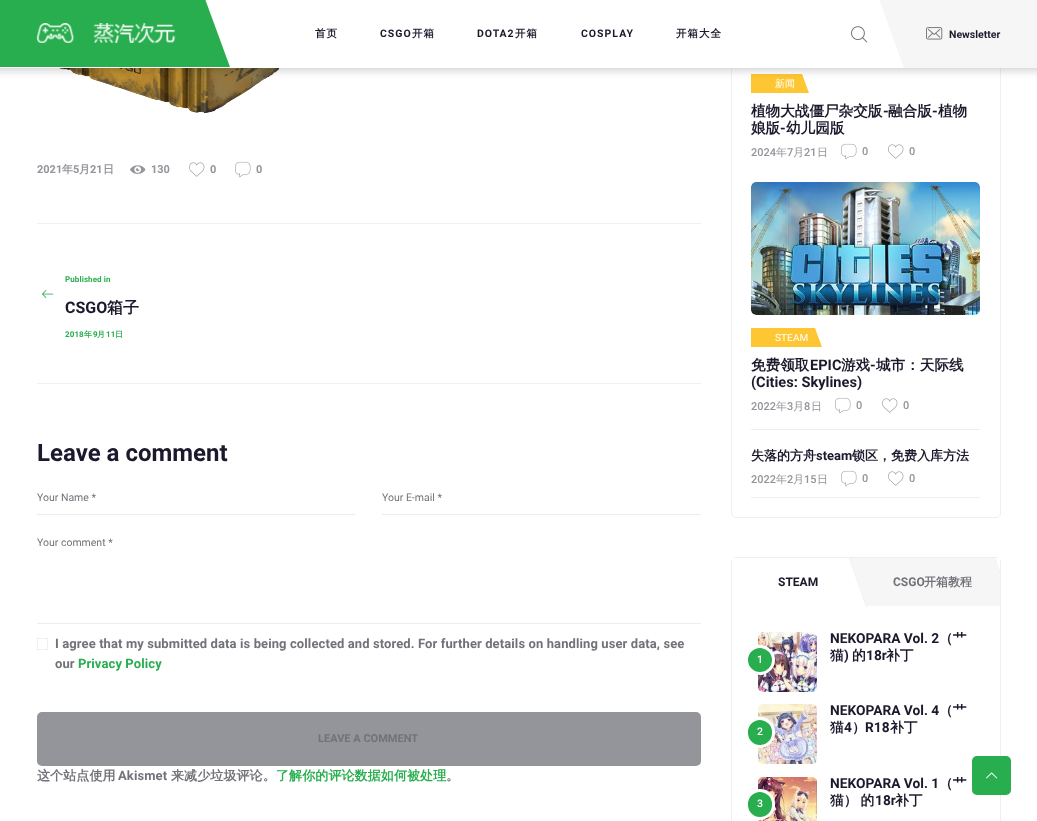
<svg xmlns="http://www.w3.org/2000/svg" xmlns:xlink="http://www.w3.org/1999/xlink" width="1037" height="821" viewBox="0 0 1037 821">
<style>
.cls-1{font:bold 10.5px WenQuanYi Zen Hei;letter-spacing:1px;fill:#1c192c}
.cls-2{font:bold 10.5px Roboto;letter-spacing:1px;fill:#1c192c}
.cls-3{font:bold 10.5px Roboto;fill:#1c192c}
.cls-4{font:bold 11px Roboto;fill:#94949b}
.cls-5{font:bold 11px WenQuanYi Zen Hei;fill:#94949b}
.cls-6{font:bold 8px Roboto;letter-spacing:0.1px;fill:#28ae4e}
.cls-7{font:bold 16px Roboto;fill:#1c192c}
.cls-8{font:bold 16px WenQuanYi Zen Hei;fill:#1c192c}
.cls-9{font:bold 8px WenQuanYi Zen Hei;letter-spacing:0.1px;fill:#28ae4e}
.cls-10{font:bold 24px Roboto;fill:#1c192c}
.cls-11{font:10.5px Roboto;fill:#727279}
.cls-12{font:bold 13px Roboto;letter-spacing:0.1px;fill:#727279}
.cls-13{font:bold 13px Roboto;letter-spacing:0.1px;fill:#28ae4e}
.cls-14{font:bold 11px Roboto;fill:#727279}
.cls-15{font:bold 13px WenQuanYi Zen Hei;letter-spacing:0.1px;fill:#727279}
.cls-16{font:bold 13px WenQuanYi Zen Hei;letter-spacing:0.1px;fill:#28ae4e}
.cls-17{font:500 10px WenQuanYi Zen Hei;letter-spacing:0.1px;fill:#ffffff}
.cls-18{font:bold 14.6px WenQuanYi Zen Hei;fill:#1c192c}
.cls-19{font:bold 14.6px Roboto;fill:#1c192c}
.cls-20{font:500 11px Roboto;fill:#94949b}
.cls-21{font:500 11px WenQuanYi Zen Hei;fill:#94949b}
.cls-22{font:10px Roboto;letter-spacing:0.1px;fill:#ffffff}
.cls-23{font:bold 13px WenQuanYi Zen Hei;fill:#1c192c}
.cls-24{font:bold 13px Roboto;fill:#1c192c}
.cls-25{font:bold 12px Roboto;fill:#1c192c}
.cls-26{font:bold 12px Roboto;fill:#727279}
.cls-27{font:bold 12px WenQuanYi Zen Hei;fill:#727279}
.cls-28{font:bold 13.75px Roboto;fill:#1c192c}
.cls-29{font:bold 13.75px WenQuanYi Zen Hei;fill:#1c192c}
.cls-30{font:500 10.5px Roboto;letter-spacing:0.1px;fill:#ffffff}
</style>
<defs>
<clipPath id="clip1"><rect x="751" y="0" width="229" height="161"/></clipPath>
<clipPath id="clip2"><rect x="751" y="182" width="229" height="233"/></clipPath>
<clipPath id="clip3"><rect x="732" y="558" width="268" height="48"/></clipPath>
</defs>
<rect width="100%" height="100%" fill="#ffffff"/>
<image xlink:href="image3.png" x="59" y="68" width="220" height="45"/>
<rect fill="none" stroke="#efeff0" x="731.5" y="-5.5" width="269" height="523" rx="4.5"/>
<g clip-path="url(#clip1)">
<path fill="#fec632" d="M741 74H802L809 93H747Z"/>
</g>
<rect fill="#000000" fill-opacity="0.2" filter="blur(5px)" x="-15" y="2" width="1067" height="68"/>
<rect fill="#ffffff" x="0" y="0" width="904" height="68"/>
<path fill="#28ae4e" d="M-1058-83H175L230 67H-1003Z"/>
<image xlink:href="image0.png" x="36" y="23" width="140" height="20"/>
<image xlink:href="image1.png" x="851" y="26" width="17" height="17"/>
<path fill="#f6f6f6" d="M839-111H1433L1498 68H904Z"/>
<image xlink:href="image2.png" x="926" y="27" width="17" height="13"/>
<image xlink:href="image4.png" x="130" y="165" width="16" height="9"/>
<image xlink:href="image5.png" x="189" y="162" width="16" height="15"/>
<image xlink:href="image6.png" x="235" y="161" width="16" height="17"/>
<rect fill="#efeff0" x="37" y="223" width="664" height="1"/>
<image xlink:href="image7.png" x="42" y="290" width="12" height="8"/>
<rect fill="#efeff0" x="37" y="383" width="664" height="1"/>
<rect fill="#ededed" x="37" y="514" width="318" height="1"/>
<rect fill="#ededed" x="382" y="514" width="319" height="1"/>
<rect fill="#ededed" x="37" y="623" width="664" height="1"/>
<rect fill="none" stroke="#efeff0" x="37.5" y="638.5" width="10" height="11"/>
<rect fill="#94949b" x="37" y="712" width="664" height="54" rx="5"/>
<image xlink:href="image6.png" x="841" y="143" width="16" height="17"/>
<image xlink:href="image5.png" x="888" y="144" width="16" height="15"/>
<image xlink:href="image8.png" x="751" y="182" width="229" height="133"/>
<g clip-path="url(#clip2)">
<path fill="#fec632" d="M741 328H815L822 347H747Z"/>
</g>
<image xlink:href="image6.png" x="835" y="397" width="16" height="17"/>
<image xlink:href="image5.png" x="882" y="398" width="16" height="15"/>
<rect fill="#eeeeee" x="751" y="429" width="229" height="1"/>
<image xlink:href="image6.png" x="841" y="470" width="16" height="17"/>
<image xlink:href="image5.png" x="888" y="471" width="16" height="15"/>
<rect fill="#efeff0" x="751" y="497" width="229" height="1"/>
<rect fill="none" stroke="#efeff0" x="731.5" y="557.5" width="269" height="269" rx="4.5"/>
<rect fill="#ffffff" x="732" y="558" width="3" height="3"/>
<rect fill="#ffffff" x="997" y="558" width="3" height="3"/>
<g clip-path="url(#clip3)">
<path fill="#f6f6f6" d="M850 558H994L1012 606H867Z"/>
<path fill="#efeff0" d="M994 558H995L1013 607H1012Z"/>
</g>
<path fill="#efeff0" d="M849 558H850L867 607H866Z"/>
<image xlink:href="image9.png" x="758" y="632" width="59" height="60"/>
<circle fill="#28ae4e" stroke="#ffffff" stroke-width="3" cx="760" cy="660" r="13.5"/>
<image xlink:href="image10.png" x="758" y="704" width="59" height="60"/>
<rect fill="#28ae4e" stroke="#ffffff" stroke-width="3" x="746.5" y="718.5" width="27" height="28" rx="13.5"/>
<image xlink:href="image11.png" x="758" y="777" width="59" height="44"/>
<rect fill="#28ae4e" stroke="#ffffff" stroke-width="3" x="746.5" y="790.5" width="27" height="28" rx="13.5"/>
<rect fill="#28ae4e" x="972" y="756" width="39" height="39" rx="5"/>
<image xlink:href="image12.png" x="986" y="772" width="12" height="7"/>
<text class="cls-1" x="315" y="37">首页</text>
<text class="cls-2" x="380" y="37">CSGO</text>
<text class="cls-1" x="412" y="37">开箱</text>
<text class="cls-2" x="477" y="37">DOTA2</text>
<text class="cls-1" x="515" y="37">开箱</text>
<text class="cls-2" x="581" y="37">COSPLAY</text>
<text class="cls-1" x="676" y="37">开箱大全</text>
<text class="cls-3" x="949" y="38">Newsletter</text>
<text class="cls-4" x="37" y="173">2021</text>
<text class="cls-5" x="62" y="173">年</text>
<text class="cls-4" x="73" y="173">5</text>
<text class="cls-5" x="79" y="173">月</text>
<text class="cls-4" x="90" y="173">21</text>
<text class="cls-5" x="103" y="173">日</text>
<text class="cls-4" x="151" y="173">130</text>
<text class="cls-4" x="210" y="173">0</text>
<text class="cls-4" x="256" y="173">0</text>
<text class="cls-6" x="65" y="282">Published in</text>
<text class="cls-7" x="65" y="313">CSGO</text>
<text class="cls-8" x="107" y="313">箱子</text>
<text class="cls-6" x="65" y="337">2018</text>
<text class="cls-9" x="84" y="337">年</text>
<text class="cls-6" x="93" y="337">9</text>
<text class="cls-9" x="97" y="337">月</text>
<text class="cls-6" x="106" y="337">11</text>
<text class="cls-9" x="115" y="337">日</text>
<text class="cls-10" x="37" y="461">Leave a comment</text>
<text class="cls-11" x="37" y="501">Your Name *</text>
<text class="cls-11" x="382" y="501">Your E-mail *</text>
<text class="cls-11" x="37" y="546">Your comment *</text>
<text class="cls-12"><tspan x="55" y="648">I agree that my submitted data is being collected and stored. For further details on handling user data, see</tspan><tspan x="55" y="668">our</tspan></text>
<text class="cls-13" x="78" y="668">Privacy Policy</text>
<text class="cls-14" x="318" y="742">LEAVE A COMMENT</text>
<text class="cls-15" x="37" y="780">这个站点使用</text>
<text class="cls-12" x="118" y="780">Akismet</text>
<text class="cls-15" x="171" y="780">来减少垃圾评论。</text>
<text class="cls-16" x="276" y="780">了解你的评论数据如何被处理</text>
<text class="cls-15" x="446" y="780">。</text>
<text class="cls-17" x="775" y="87">新闻</text>
<text class="cls-18" x="751" y="116">植物大战僵尸杂交版</text>
<text class="cls-19" x="883" y="116">-</text>
<text class="cls-18" x="888" y="116">融合版</text>
<text class="cls-19" x="932" y="116">-</text>
<text class="cls-18" x="938" y="116">植物</text>
<text class="cls-18" x="751" y="133">娘版</text>
<text class="cls-19" x="780" y="133">-</text>
<text class="cls-18" x="786" y="133">幼儿园版</text>
<text class="cls-20" x="751" y="156">2024</text>
<text class="cls-21" x="776" y="156">年</text>
<text class="cls-20" x="787" y="156">7</text>
<text class="cls-21" x="793" y="156">月</text>
<text class="cls-20" x="804" y="156">21</text>
<text class="cls-21" x="817" y="156">日</text>
<text class="cls-20" x="862" y="155">0</text>
<text class="cls-20" x="909" y="155">0</text>
<text class="cls-22" x="775" y="341">STEAM</text>
<text class="cls-18" x="751" y="370">免费领取</text>
<text class="cls-19" x="810" y="370">EPIC</text>
<text class="cls-18" x="841" y="370">游戏</text>
<text class="cls-19" x="870" y="370">-</text>
<text class="cls-18" x="876" y="370">城市：天际线</text>
<text class="cls-19" x="751" y="387">(Cities: Skylines)</text>
<text class="cls-20" x="751" y="410">2022</text>
<text class="cls-21" x="776" y="410">年</text>
<text class="cls-20" x="787" y="410">3</text>
<text class="cls-21" x="793" y="410">月</text>
<text class="cls-20" x="804" y="410">8</text>
<text class="cls-21" x="811" y="410">日</text>
<text class="cls-20" x="856" y="409">0</text>
<text class="cls-20" x="903" y="409">0</text>
<text class="cls-23" x="751" y="460">失落的方舟</text>
<text class="cls-24" x="816" y="460">steam</text>
<text class="cls-23" x="852" y="460">锁区，免费入库方法</text>
<text class="cls-20" x="751" y="483">2022</text>
<text class="cls-21" x="776" y="483">年</text>
<text class="cls-20" x="787" y="483">2</text>
<text class="cls-21" x="793" y="483">月</text>
<text class="cls-20" x="804" y="483">15</text>
<text class="cls-21" x="817" y="483">日</text>
<text class="cls-20" x="862" y="482">0</text>
<text class="cls-20" x="909" y="482">0</text>
<text class="cls-25" x="778" y="586">STEAM</text>
<text class="cls-26" x="893" y="586">CSGO</text>
<text class="cls-27" x="924" y="586">开箱教程</text>
<text class="cls-28" x="830" y="643">NEKOPARA Vol. 2</text>
<text class="cls-29" x="939" y="643">（艹</text>
<text class="cls-29" x="830" y="660">猫</text>
<text class="cls-28" x="844" y="660">)</text>
<text class="cls-29" x="852" y="660">的</text>
<text class="cls-28" x="866" y="660">18r</text>
<text class="cls-29" x="886" y="660">补丁</text>
<text class="cls-30" x="757" y="663">1</text>
<text class="cls-28" x="830" y="715">NEKOPARA Vol. 4</text>
<text class="cls-29" x="939" y="715">（艹</text>
<text class="cls-29" x="830" y="732">猫</text>
<text class="cls-28" x="844" y="732">4</text>
<text class="cls-29" x="852" y="732">）</text>
<text class="cls-28" x="865" y="732">R18</text>
<text class="cls-29" x="890" y="732">补丁</text>
<text class="cls-30" x="757" y="735">2</text>
<text class="cls-28" x="830" y="788">NEKOPARA Vol. 1</text>
<text class="cls-29" x="939" y="788">（艹</text>
<text class="cls-29" x="830" y="805" word-spacing="-1">猫） 的</text>
<text class="cls-28" x="875" y="805">18r</text>
<text class="cls-29" x="895" y="805">补丁</text>
<text class="cls-30" x="757" y="807">3</text>
</svg>
